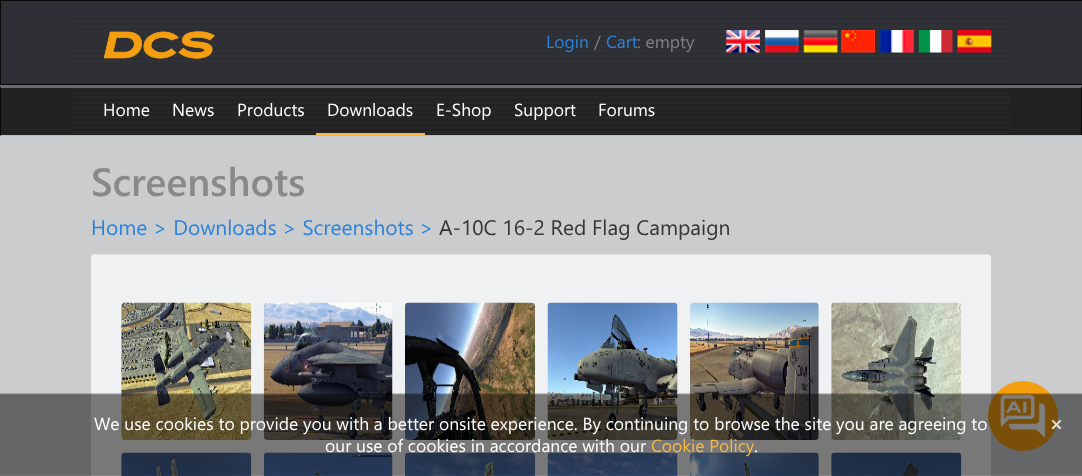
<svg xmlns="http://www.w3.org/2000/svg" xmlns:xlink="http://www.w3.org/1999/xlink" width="1082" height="476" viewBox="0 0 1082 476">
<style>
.cls-1{font:17.5px Segoe UI;fill:#2b82dc}
.cls-2{font:17.5px Segoe UI;fill:#7f8180}
.cls-3{font:17.5px Segoe UI;fill:#ffffff}
.cls-4{font:600 39.5px Segoe UI;fill:#898989}
.cls-5{font:21px Segoe UI;fill:#2b82dc}
.cls-6{font:21px Segoe UI;fill:#363636}
.cls-7{font:17.5px Segoe UI;fill:#fcb941}
.cls-8{font:bold 21px Segoe UI;fill:#e2ded7}
</style>
<rect width="100%" height="100%" fill="#caccce"/>
<rect fill="#2e2f34" stroke="#080808" x="0.5" y="0.5" width="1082" height="84"/>
<image xlink:href="image0.png" x="73" y="16" width="937" height="46"/>
<image xlink:href="image1.png" x="104" y="31" width="111" height="28"/>
<image xlink:href="image2.png" x="726" y="30" width="34" height="23"/>
<image xlink:href="image3.png" x="765" y="30" width="34" height="23"/>
<image xlink:href="image4.png" x="803" y="30" width="35" height="23"/>
<image xlink:href="image5.png" x="841" y="30" width="34" height="23"/>
<image xlink:href="image6.png" x="880" y="30" width="34" height="23"/>
<image xlink:href="image7.png" x="918" y="30" width="35" height="23"/>
<image xlink:href="image8.png" x="957" y="30" width="35" height="23"/>
<rect fill="#222222" x="1" y="88" width="1080" height="47"/>
<path fill="#6a6a6a" d="M0 85H1082L1081 88H1Z"/>
<path fill="#080808" d="M1082 85V136L1081 135V88Z"/>
<rect fill="#fbb840" x="0" y="135" width="1082" height="1"/>
<path fill="#080808" d="M0 136V85L1 88V135Z"/>
<image xlink:href="image9.png" x="72" y="88" width="938" height="46"/>
<rect fill="#fbb840" x="316" y="133" width="109" height="2"/>
<rect fill="#f0f1f2" x="91" y="254" width="900" height="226" rx="4"/>
<path fill="#000000" fill-opacity="0.05" d="M95 255H988C990 255 991 257 991 259C991 256 990 254 987 254H95C92 254 91 256 91 259C91 257 93 255 95 255Z"/>
<image xlink:href="image10.png" x="121" y="302" width="131" height="138"/>
<image xlink:href="image11.png" x="263" y="302" width="130" height="138"/>
<image xlink:href="image12.png" x="405" y="302" width="130" height="138"/>
<image xlink:href="image13.png" x="547" y="302" width="131" height="138"/>
<image xlink:href="image14.png" x="690" y="302" width="129" height="138"/>
<image xlink:href="image15.png" x="831" y="302" width="131" height="138"/>
<image xlink:href="image16.png" x="121" y="452" width="131" height="24"/>
<image xlink:href="image17.png" x="263" y="452" width="130" height="24"/>
<image xlink:href="image18.png" x="405" y="452" width="130" height="24"/>
<image xlink:href="image19.png" x="547" y="452" width="131" height="24"/>
<image xlink:href="image20.png" x="690" y="452" width="129" height="24"/>
<image xlink:href="image21.png" x="831" y="452" width="131" height="24"/>
<circle fill="#f59e0f" cx="1023" cy="416" r="35"/>
<image xlink:href="image22.png" x="1000" y="394" width="46" height="44"/>
<image xlink:href="image23.png" x="0" y="393" width="1082" height="83"/>
<text class="cls-1" x="546" y="48">Login</text>
<text class="cls-2" x="594" y="48">/</text>
<text class="cls-1" x="606" y="48">Cart</text>
<text class="cls-2" x="637" y="48">: empty</text>
<text class="cls-3" x="103" y="116">Home</text>
<text class="cls-3" x="172" y="116">News</text>
<text class="cls-3" x="237" y="116">Products</text>
<text class="cls-3" x="327" y="116">Downloads</text>
<text class="cls-3" x="436" y="116">E-Shop</text>
<text class="cls-3" x="514" y="116">Support</text>
<text class="cls-3" x="598" y="116">Forums</text>
<text class="cls-4" x="91" y="196">Screenshots</text>
<text class="cls-5" x="91" y="235">Home &gt; Downloads &gt; Screenshots &gt;</text>
<text class="cls-6" x="439" y="235">A-10C 16-2 Red Flag Campaign</text>
<text class="cls-3" x="94" y="430">We use cookies to provide you with a better onsite experience. By continuing to browse the site you are agreeing to</text>
<text class="cls-3" x="325" y="452">our use of cookies in accordance with our</text>
<text class="cls-7" x="651" y="452">Cookie Policy</text>
<text class="cls-3" x="754" y="452">.</text>
<text class="cls-8" x="1049" y="431">×</text>
</svg>
